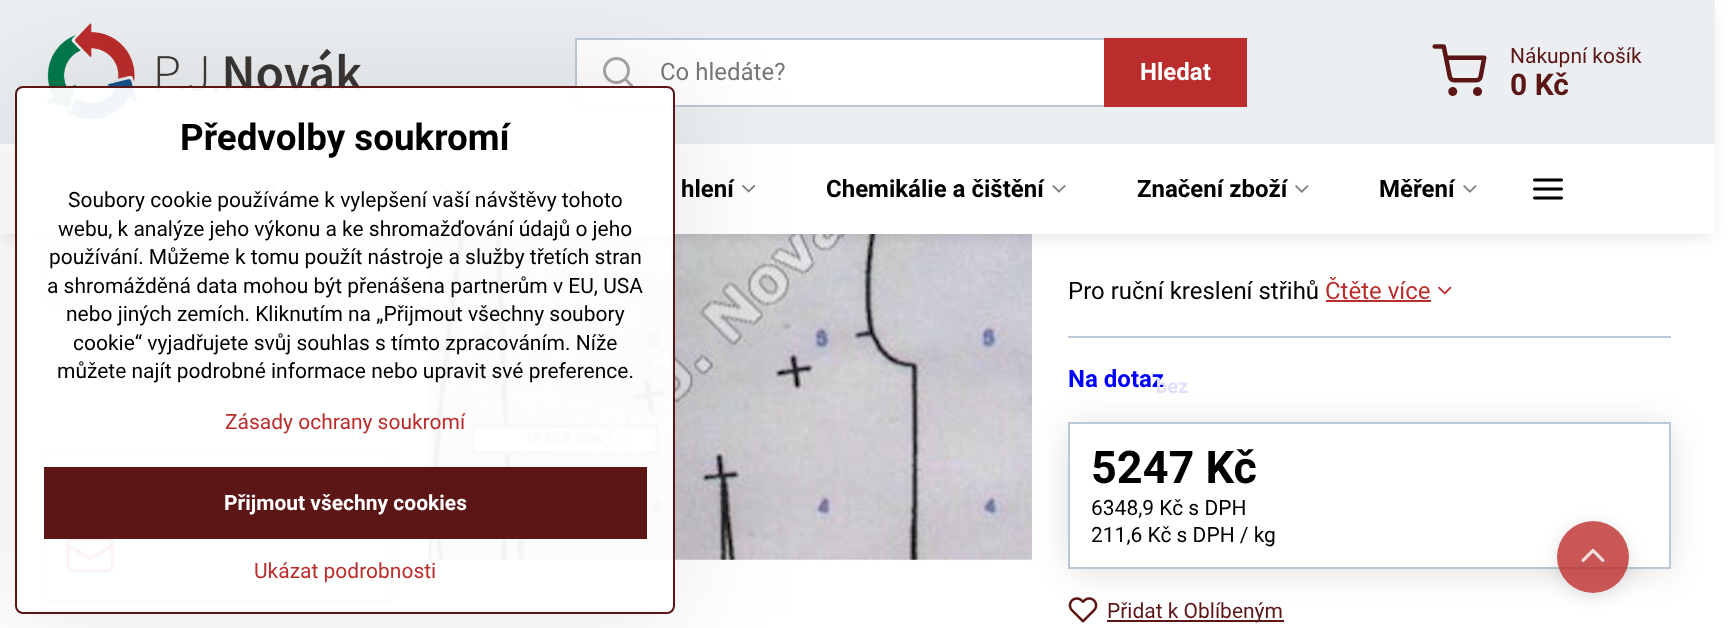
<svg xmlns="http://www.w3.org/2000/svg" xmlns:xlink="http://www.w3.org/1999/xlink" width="1736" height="628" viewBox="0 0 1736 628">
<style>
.cls-1{font:bold 36.75px Roboto;fill:#000000}
.cls-2{font:21px Roboto;fill:#000000}
.cls-3{font:21px Roboto;fill:#bb2d2c}
.cls-4{font:bold 21px Roboto;fill:#ffffff}
.cls-5{font:24px Roboto;fill:#757575}
.cls-6{font:bold 24px Roboto;fill:#ffffff}
.cls-7{font:21px Roboto;fill:#5d1616}
.cls-8{font:bold 30px Roboto;fill:#5d1616}
.cls-9{font:bold 24px Roboto;fill:#000000}
.cls-10{font:24px Roboto;fill:#000000}
.cls-11{font:24px Roboto;fill:#bb2d2c}
.cls-12{font:bold 24px Roboto;fill:#0000ff}
.cls-13{font:bold 20px Roboto;fill:#e1e1ff}
.cls-14{font:bold 45px Roboto;fill:#000000}
</style>
<defs>
<clipPath id="clip1"><path d="M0 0H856V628H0ZM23 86H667C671.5 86 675 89.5 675 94V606C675 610.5 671.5 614 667 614H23C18.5 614 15 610.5 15 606V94C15 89.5 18.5 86 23 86Z" clip-rule="evenodd"/></clipPath>
<clipPath id="clip2"><path d="M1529 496H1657V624H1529ZM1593 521C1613 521 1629 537 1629 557C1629 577 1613 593 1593 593C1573 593 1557 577 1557 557C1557 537 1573 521 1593 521Z" clip-rule="evenodd"/></clipPath>
</defs>
<rect width="100%" height="100%" fill="#ffffff"/>
<rect fill="#000014" fill-opacity="0.15" filter="blur(12px)" x="56" y="33" width="325" height="266"/>
<rect fill="#ebeff2" x="46" y="234" width="345" height="69"/>
<rect fill="none" stroke="#bbc9d7" stroke-width="2" x="45" y="16" width="347" height="288"/>
<image xlink:href="image11.png" x="429" y="234" width="603" height="328"/>
<rect fill="#000014" fill-opacity="0.15" filter="blur(9px)" x="6" y="12" width="1703" height="222"/>
<rect fill="#ebeff2" x="0" y="0" width="1715" height="144"/>
<image xlink:href="image0.png" x="46" y="23" width="316" height="97"/>
<rect fill="#ffffff" x="577" y="40" width="527" height="65"/>
<rect fill="none" stroke="#bbc9d7" stroke-width="2" x="576" y="39" width="670" height="67"/>
<image xlink:href="image1.png" x="603" y="57" width="30" height="29"/>
<rect fill="#ffffff" x="0" y="144" width="1715" height="90"/>
<image xlink:href="image3.png" x="263" y="184" width="15" height="9"/>
<image xlink:href="image4.png" x="441" y="184" width="14" height="8"/>
<image xlink:href="image5.png" x="569" y="185" width="14" height="8"/>
<image xlink:href="image6.png" x="742" y="184" width="14" height="9"/>
<rect fill="#ebeff2" stroke="#bbc9d7" stroke-width="2" x="45" y="451" width="347" height="150"/>
<image xlink:href="image10.png" x="66" y="539" width="48" height="34"/>
<g clip-path="url(#clip1)">
<rect fill="#000000" fill-opacity="0.1" filter="blur(60px)" x="15" y="86" width="660" height="528" rx="8"/>
</g>
<rect fill="#ffffff" fill-opacity="0.95" stroke="#5d1616" stroke-width="2" x="16" y="87" width="658" height="526" rx="7"/>
<rect fill="#5d1616" x="44" y="467" width="603" height="72"/>
<rect fill="#bb2d2c" x="1104" y="38" width="143" height="69"/>
<image xlink:href="image2.png" x="1432" y="44" width="55" height="52"/>
<image xlink:href="image5.png" x="1052" y="185" width="14" height="8"/>
<image xlink:href="image7.png" x="1295" y="185" width="14" height="8"/>
<image xlink:href="image8.png" x="1463" y="185" width="14" height="8"/>
<image xlink:href="image9.png" x="1533" y="178" width="30" height="22"/>
<rect fill="#bb2d2c" x="1326" y="300" width="105" height="2"/>
<image xlink:href="image12.png" x="1438" y="286" width="14" height="9"/>
<rect fill="#bbc9d7" x="1068" y="336" width="603" height="2"/>
<image xlink:href="image13.png" x="1068" y="597" width="30" height="26"/>
<rect fill="#5d1616" x="1107" y="620" width="177" height="2"/>
<rect fill="#000014" fill-opacity="0.15" filter="blur(18px)" x="1071" y="428" width="597" height="141"/>
<rect fill="#ffffff" stroke="#bbc9d7" stroke-width="2" x="1069" y="423" width="601" height="145"/>
<g clip-path="url(#clip2)">
<rect fill="#000014" fill-opacity="0.12" filter="blur(9px)" x="1557" y="524" width="72" height="72" rx="36"/>
</g>
<circle fill="#bb2d2c" fill-opacity="0.8" cx="1593" cy="557" r="36"/>
<image xlink:href="image14.png" x="1581" y="548" width="24" height="15"/>
<text class="cls-1" x="180" y="150">Předvolby soukromí</text>
<text class="cls-2" x="68" y="207">Soubory cookie používáme k vylepšení vaší návštěvy tohoto</text>
<text class="cls-2" x="58" y="236">webu, k analýze jeho výkonu a ke shromažďování údajů o jeho</text>
<text class="cls-2" x="49" y="264">používání. Můžeme k tomu použít nástroje a služby třetích stran</text>
<text class="cls-2" x="47" y="293">a shromážděná data mohou být přenášena partnerům v EU, USA</text>
<text class="cls-2" x="66" y="321">nebo jiných zemích. Kliknutím na „Přijmout všechny soubory</text>
<text class="cls-2" x="73" y="350">cookie“ vyjadřujete svůj souhlas s tímto zpracováním. Níže</text>
<text class="cls-2" x="57" y="378">můžete najít podrobné informace nebo upravit své preference.</text>
<text class="cls-3" x="225" y="429">Zásady ochrany soukromí</text>
<text class="cls-4" x="224" y="510">Přijmout všechny cookies</text>
<text class="cls-3" x="254" y="578">Ukázat podrobnosti</text>
<text class="cls-5" x="660" y="80">Co hledáte?</text>
<text class="cls-6" x="1140" y="80">Hledat</text>
<text class="cls-7" x="1510" y="63">Nákupní košík</text>
<text class="cls-8" x="1510" y="95">0 Kč</text>
<text class="cls-9" x="681" y="197">hlení</text>
<text class="cls-9" x="826" y="197">Chemikálie a čištění</text>
<text class="cls-9" x="1137" y="197">Značení zboží</text>
<text class="cls-9" x="1379" y="197">Měření</text>
<text class="cls-10" x="1068" y="299">Pro ruční kreslení střihů</text>
<text class="cls-11" x="1325" y="299">Čtěte více</text>
<text class="cls-12" x="1068" y="387">Na dotaz</text>
<text class="cls-13" x="1156" y="393">bez</text>
<text class="cls-14" x="1091" y="483">5247 Kč</text>
<text class="cls-2"><tspan x="1091" y="515">6348,9 Kč s DPH</tspan><tspan x="1091" y="542">211,6 Kč s DPH / kg</tspan></text>
<text class="cls-7" x="1107" y="618">Přidat k Oblíbeným</text>
</svg>
